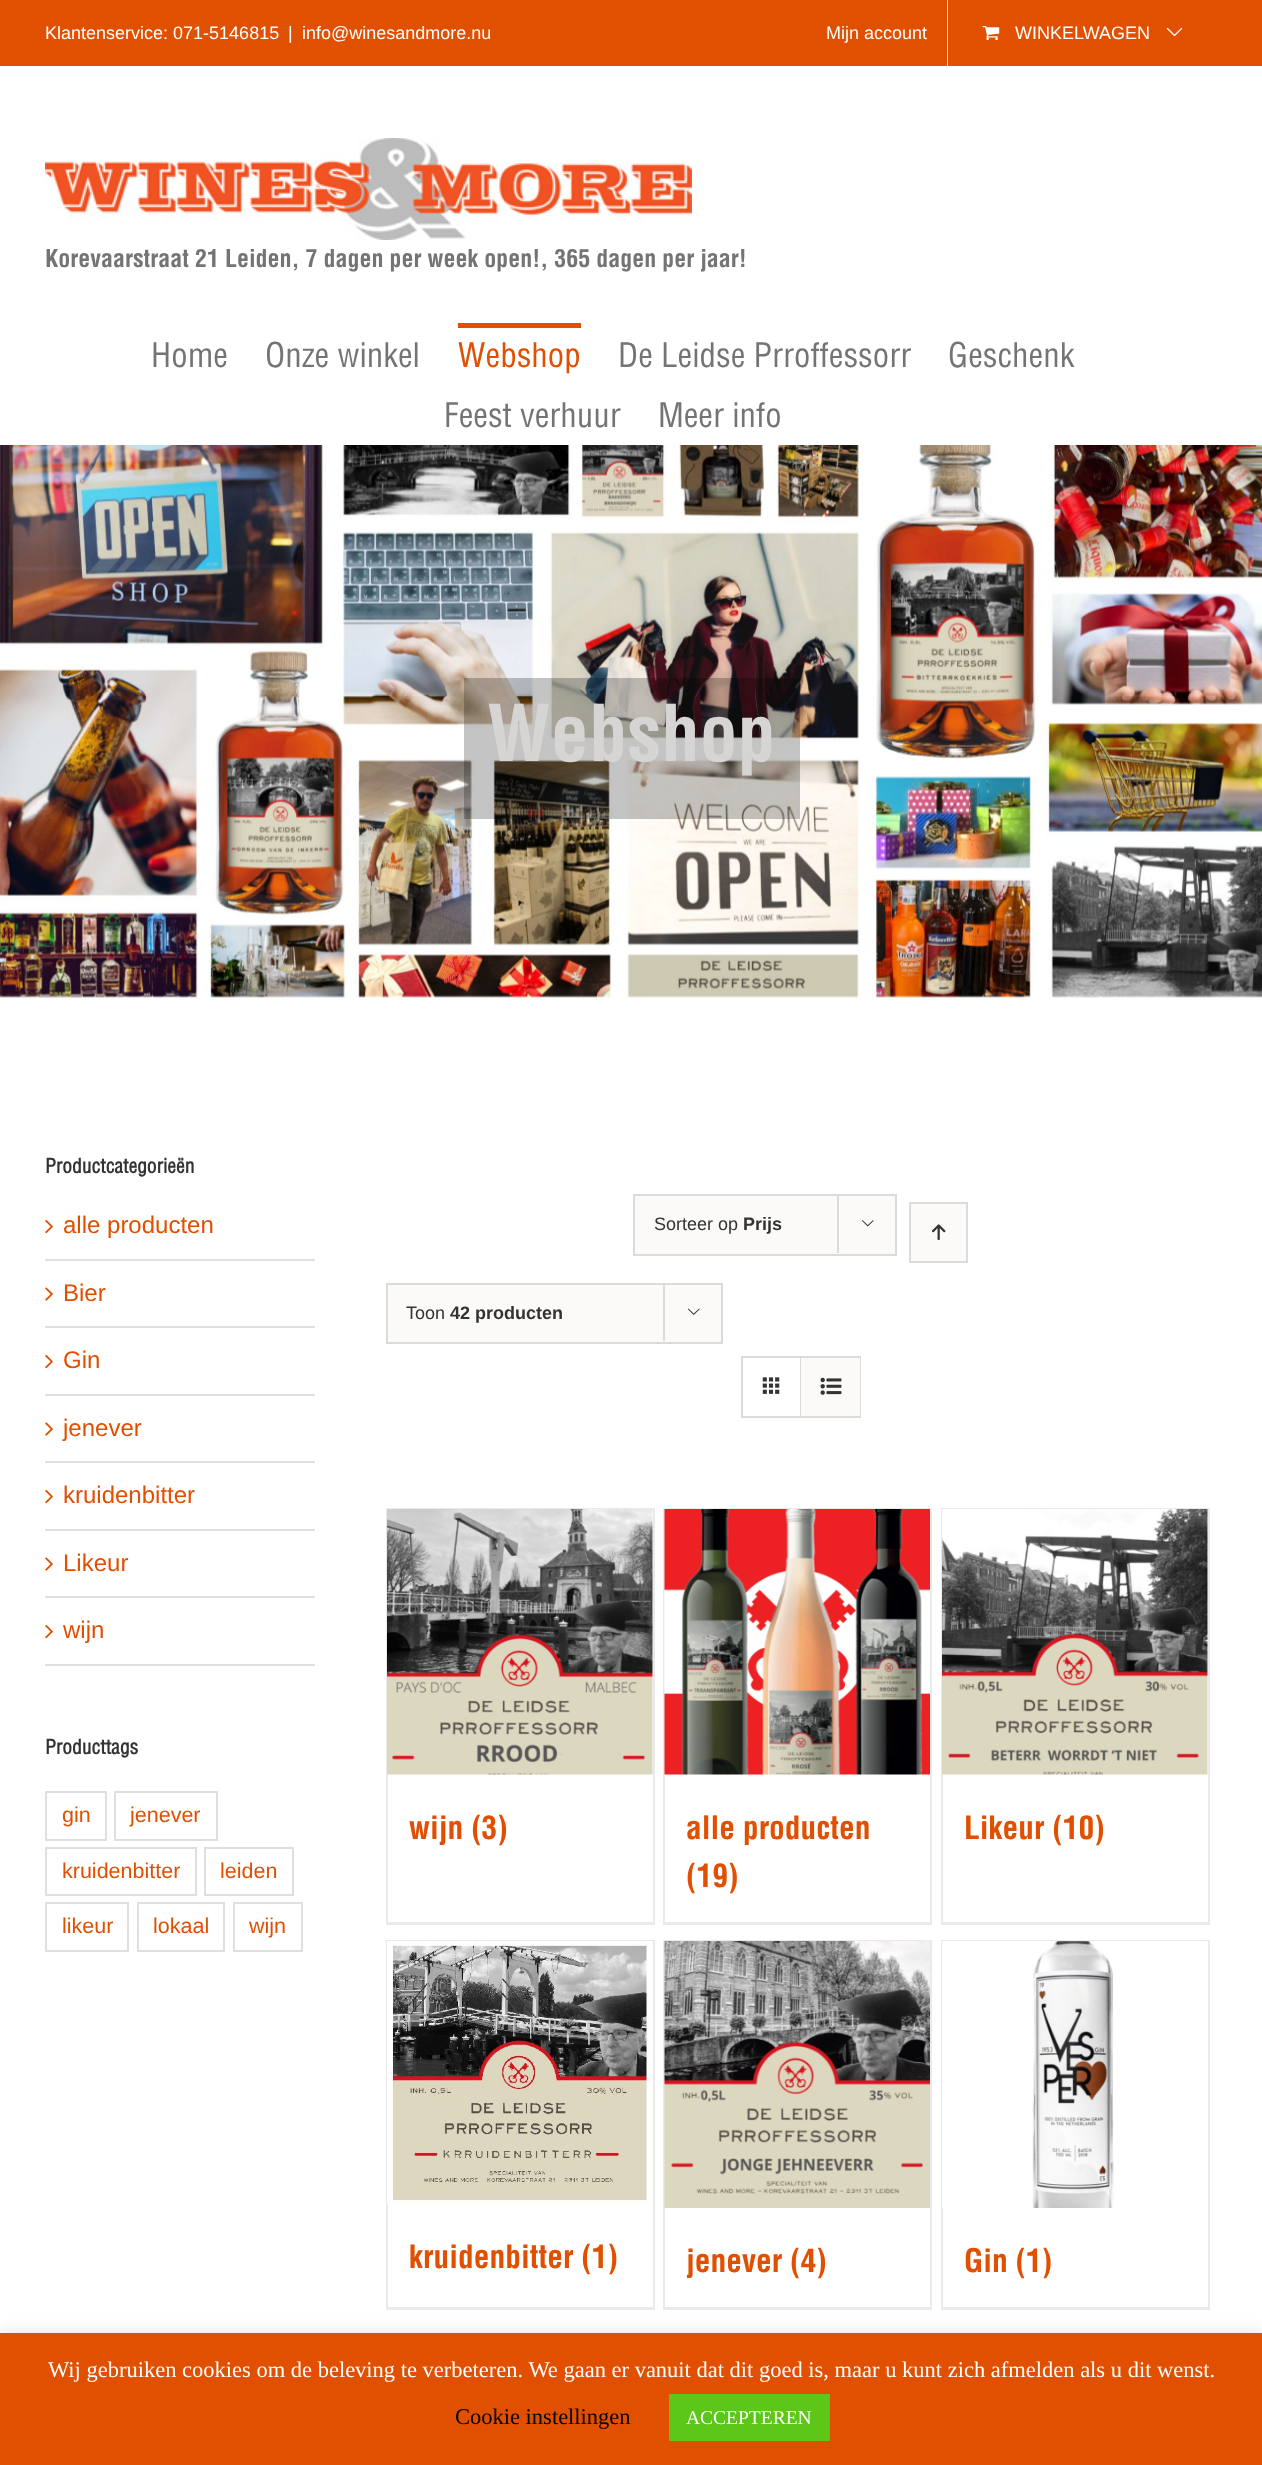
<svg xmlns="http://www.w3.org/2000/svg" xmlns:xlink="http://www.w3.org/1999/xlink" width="1262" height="2465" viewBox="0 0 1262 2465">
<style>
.cls-1{font:18px Liberation Sans;fill:#ffffff}
.cls-2{font:bold 24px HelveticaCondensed;fill:#747474}
.cls-3{font:33px Helvetica Condensed;fill:#747474}
.cls-4{font:33px Helvetica Condensed;fill:#e14f00}
.cls-5{font:bold 76.5px HelveticaCondensed;fill:#d6d5d4}
.cls-6{font:bold 19.5px 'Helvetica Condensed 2';fill:#333333}
.cls-7{font:24px Liberation Sans;fill:#e14f00}
.cls-8{font:21.5px Liberation Sans;fill:#e14f00}
.cls-9{font:18px Liberation Sans;fill:#333333}
.cls-10{font:bold 18px Liberation Sans;fill:#333333}
.cls-11{font:bold 31.5px HelveticaCondensed;fill:#e14f00}
.cls-12{font:22.5px Liberation Serif;fill:#ffffff}
.cls-13{font:22.5px Liberation Serif;fill:#000000}
.cls-14{font:19.5px Liberation Serif;fill:#ffffff}
</style>
<rect width="100%" height="100%" fill="#ffffff"/>
<rect fill="#e14f00" x="0" y="0" width="1262" height="66"/>
<rect fill="#e5e5e5" x="947" y="0" width="1" height="66"/>
<image xlink:href="image0.png" x="982" y="26" width="18" height="15"/>
<image xlink:href="image1.png" x="1166" y="27" width="17" height="10"/>
<image xlink:href="image2.png" x="45" y="138" width="647" height="102"/>
<rect fill="#e24f01" x="458" y="323" width="123" height="5"/>
<image xlink:href="image3.png" x="0" y="445" width="1262" height="554"/>
<rect fill="#000000" fill-opacity="0.23" x="464" y="678" width="336" height="141"/>
<rect fill="#e0dede" x="45" y="1259" width="270" height="2"/>
<image xlink:href="image4.png" x="45" y="1219" width="8" height="15"/>
<rect fill="#e0dede" x="45" y="1326" width="270" height="2"/>
<image xlink:href="image5.png" x="45" y="1287" width="8" height="14"/>
<rect fill="#e0dede" x="45" y="1394" width="270" height="2"/>
<image xlink:href="image4.png" x="45" y="1354" width="8" height="15"/>
<rect fill="#e0dede" x="45" y="1461" width="270" height="2"/>
<image xlink:href="image5.png" x="45" y="1422" width="8" height="14"/>
<rect fill="#e0dede" x="45" y="1529" width="270" height="2"/>
<image xlink:href="image4.png" x="45" y="1489" width="8" height="15"/>
<rect fill="#e0dede" x="45" y="1596" width="270" height="2"/>
<image xlink:href="image5.png" x="45" y="1557" width="8" height="14"/>
<rect fill="#e0dede" x="45" y="1664" width="270" height="2"/>
<image xlink:href="image4.png" x="45" y="1624" width="8" height="15"/>
<rect fill="none" stroke="#e0dede" stroke-width="2" x="46" y="1792" width="60" height="48"/>
<rect fill="none" stroke="#e0dede" stroke-width="2" x="115" y="1792" width="102" height="48"/>
<rect fill="none" stroke="#e0dede" stroke-width="2" x="46" y="1848" width="150" height="47"/>
<rect fill="none" stroke="#e0dede" stroke-width="2" x="205" y="1848" width="88" height="47"/>
<rect fill="none" stroke="#e0dede" stroke-width="2" x="46" y="1903" width="82" height="48"/>
<rect fill="none" stroke="#e0dede" stroke-width="2" x="138" y="1903" width="86" height="48"/>
<rect fill="none" stroke="#e0dede" stroke-width="2" x="234" y="1903" width="68" height="48"/>
<rect fill="#fbfaf9" stroke="#dbdbdb" stroke-width="2" x="634" y="1195" width="262" height="60"/>
<rect fill="#dbdbdb" x="837" y="1194" width="2" height="59"/>
<image xlink:href="image6.png" x="862" y="1220" width="12" height="7"/>
<rect fill="#fbfaf9" stroke="#dbdbdb" stroke-width="2" x="910" y="1203" width="57" height="59"/>
<image xlink:href="image7.png" x="931" y="1224" width="15" height="17"/>
<rect fill="#fbfaf9" stroke="#dbdbdb" stroke-width="2" x="387" y="1284" width="335" height="59"/>
<rect fill="#dbdbdb" x="663" y="1283" width="2" height="58"/>
<image xlink:href="image8.png" x="688" y="1308" width="12" height="7"/>
<rect fill="none" stroke="#dbdbdb" stroke-width="2" x="742" y="1357" width="118" height="60"/>
<rect fill="#dbdbdb" x="800" y="1358" width="1" height="58"/>
<image xlink:href="image9.png" x="762" y="1377" width="18" height="17"/>
<rect fill="#fbfaf9" x="801" y="1358" width="59" height="58"/>
<image xlink:href="image10.png" x="820" y="1377" width="22" height="18"/>
<rect fill="#ebeaea" x="386" y="1508" width="268" height="2"/>
<rect fill="#ebeaea" x="653" y="1508" width="2" height="417"/>
<rect fill="#ebeaea" x="386" y="1922" width="268" height="3"/>
<rect fill="#ebeaea" x="386" y="1508" width="2" height="417"/>
<image xlink:href="image11.png" x="387" y="1509" width="266" height="266"/>
<rect fill="#ebeaea" x="663" y="1508" width="269" height="1"/>
<rect fill="#ebeaea" x="930" y="1508" width="2" height="417"/>
<rect fill="#ebeaea" x="663" y="1922" width="269" height="3"/>
<rect fill="#ebeaea" x="663" y="1508" width="2" height="417"/>
<image xlink:href="image12.png" x="664" y="1509" width="266" height="266"/>
<rect fill="#ebeaea" x="941" y="1508" width="268" height="2"/>
<rect fill="#ebeaea" x="1208" y="1508" width="2" height="417"/>
<rect fill="#ebeaea" x="941" y="1922" width="268" height="3"/>
<rect fill="#ebeaea" x="941" y="1508" width="2" height="417"/>
<image xlink:href="image13.png" x="942" y="1509" width="266" height="266"/>
<rect fill="#ebeaea" x="386" y="1940" width="268" height="2"/>
<rect fill="#ebeaea" x="653" y="1940" width="2" height="370"/>
<rect fill="#ebeaea" x="386" y="2307" width="268" height="3"/>
<rect fill="#ebeaea" x="386" y="1940" width="2" height="370"/>
<image xlink:href="image14.png" x="387" y="1941" width="266" height="263"/>
<rect fill="#ebeaea" x="663" y="1940" width="269" height="1"/>
<rect fill="#ebeaea" x="930" y="1940" width="2" height="370"/>
<rect fill="#ebeaea" x="663" y="2307" width="269" height="3"/>
<rect fill="#ebeaea" x="663" y="1940" width="2" height="370"/>
<image xlink:href="image15.png" x="664" y="1941" width="266" height="267"/>
<rect fill="#ebeaea" x="941" y="1940" width="268" height="2"/>
<rect fill="#ebeaea" x="1208" y="1940" width="2" height="370"/>
<rect fill="#ebeaea" x="941" y="2307" width="268" height="3"/>
<rect fill="#ebeaea" x="941" y="1940" width="2" height="370"/>
<image xlink:href="image16.png" x="942" y="1941" width="266" height="267"/>
<rect fill="#acabab" fill-opacity="0.3" filter="blur(7.5px)" x="0" y="2331" width="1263" height="134"/>
<rect fill="#e14f00" x="0" y="2333" width="1262" height="132"/>
<rect fill="#5cc619" x="669" y="2394" width="161" height="47"/>
<text class="cls-1" x="45" y="39">Klantenservice: 071-5146815</text>
<text class="cls-1" x="288" y="39">|</text>
<text class="cls-1" x="302" y="39">info@winesandmore.nu</text>
<text class="cls-1" x="826" y="39">Mijn account</text>
<text class="cls-1" x="1015" y="39">WINKELWAGEN</text>
<text class="cls-2" x="45" y="267">Korevaarstraat 21 Leiden, 7 dagen per week open!, 365 dagen per jaar!</text>
<text class="cls-3" x="151" y="367">Home</text>
<text class="cls-3" x="265" y="367">Onze winkel</text>
<text class="cls-4" x="458" y="367">Webshop</text>
<text class="cls-3" x="618" y="367">De Leidse Prroffessorr</text>
<text class="cls-3" x="948" y="367">Geschenk</text>
<text class="cls-3" x="444" y="427">Feest verhuur</text>
<text class="cls-3" x="658" y="427">Meer info</text>
<text class="cls-5" x="487" y="761">Webshop</text>
<text class="cls-6" x="45" y="1173">Productcategorieën</text>
<text class="cls-7" x="63" y="1233">alle producten</text>
<text class="cls-7" x="63" y="1301">Bier</text>
<text class="cls-7" x="63" y="1368">Gin</text>
<text class="cls-7" x="63" y="1436">jenever</text>
<text class="cls-7" x="63" y="1503">kruidenbitter</text>
<text class="cls-7" x="63" y="1571">Likeur</text>
<text class="cls-7" x="63" y="1638">wijn</text>
<text class="cls-6" x="45" y="1754">Producttags</text>
<text class="cls-8" x="62" y="1822">gin</text>
<text class="cls-8" x="130" y="1822">jenever</text>
<text class="cls-8" x="62" y="1878">kruidenbitter</text>
<text class="cls-8" x="220" y="1878">leiden</text>
<text class="cls-8" x="62" y="1933">likeur</text>
<text class="cls-8" x="153" y="1933">lokaal</text>
<text class="cls-8" x="249" y="1933">wijn</text>
<text class="cls-9" x="654" y="1230">Sorteer op</text>
<text class="cls-10" x="743" y="1230">Prijs</text>
<text class="cls-9" x="406" y="1319">Toon</text>
<text class="cls-10" x="450" y="1319">42 producten</text>
<text class="cls-11" x="409" y="1839">wijn (3)</text>
<text class="cls-11"><tspan x="686" y="1839">alle producten</tspan><tspan x="686" y="1887">(19)</tspan></text>
<text class="cls-11" x="964" y="1839">Likeur (10)</text>
<text class="cls-11" x="409" y="2268">kruidenbitter (1)</text>
<text class="cls-11" x="686" y="2272">jenever (4)</text>
<text class="cls-11" x="964" y="2272">Gin (1)</text>
<text class="cls-12" x="48" y="2377">Wij gebruiken cookies om de beleving te verbeteren. We gaan er vanuit dat dit goed is, maar u kunt zich afmelden als u dit wenst.</text>
<text class="cls-13" x="455" y="2424">Cookie instellingen</text>
<text class="cls-14" x="686" y="2424">ACCEPTEREN</text>
</svg>
